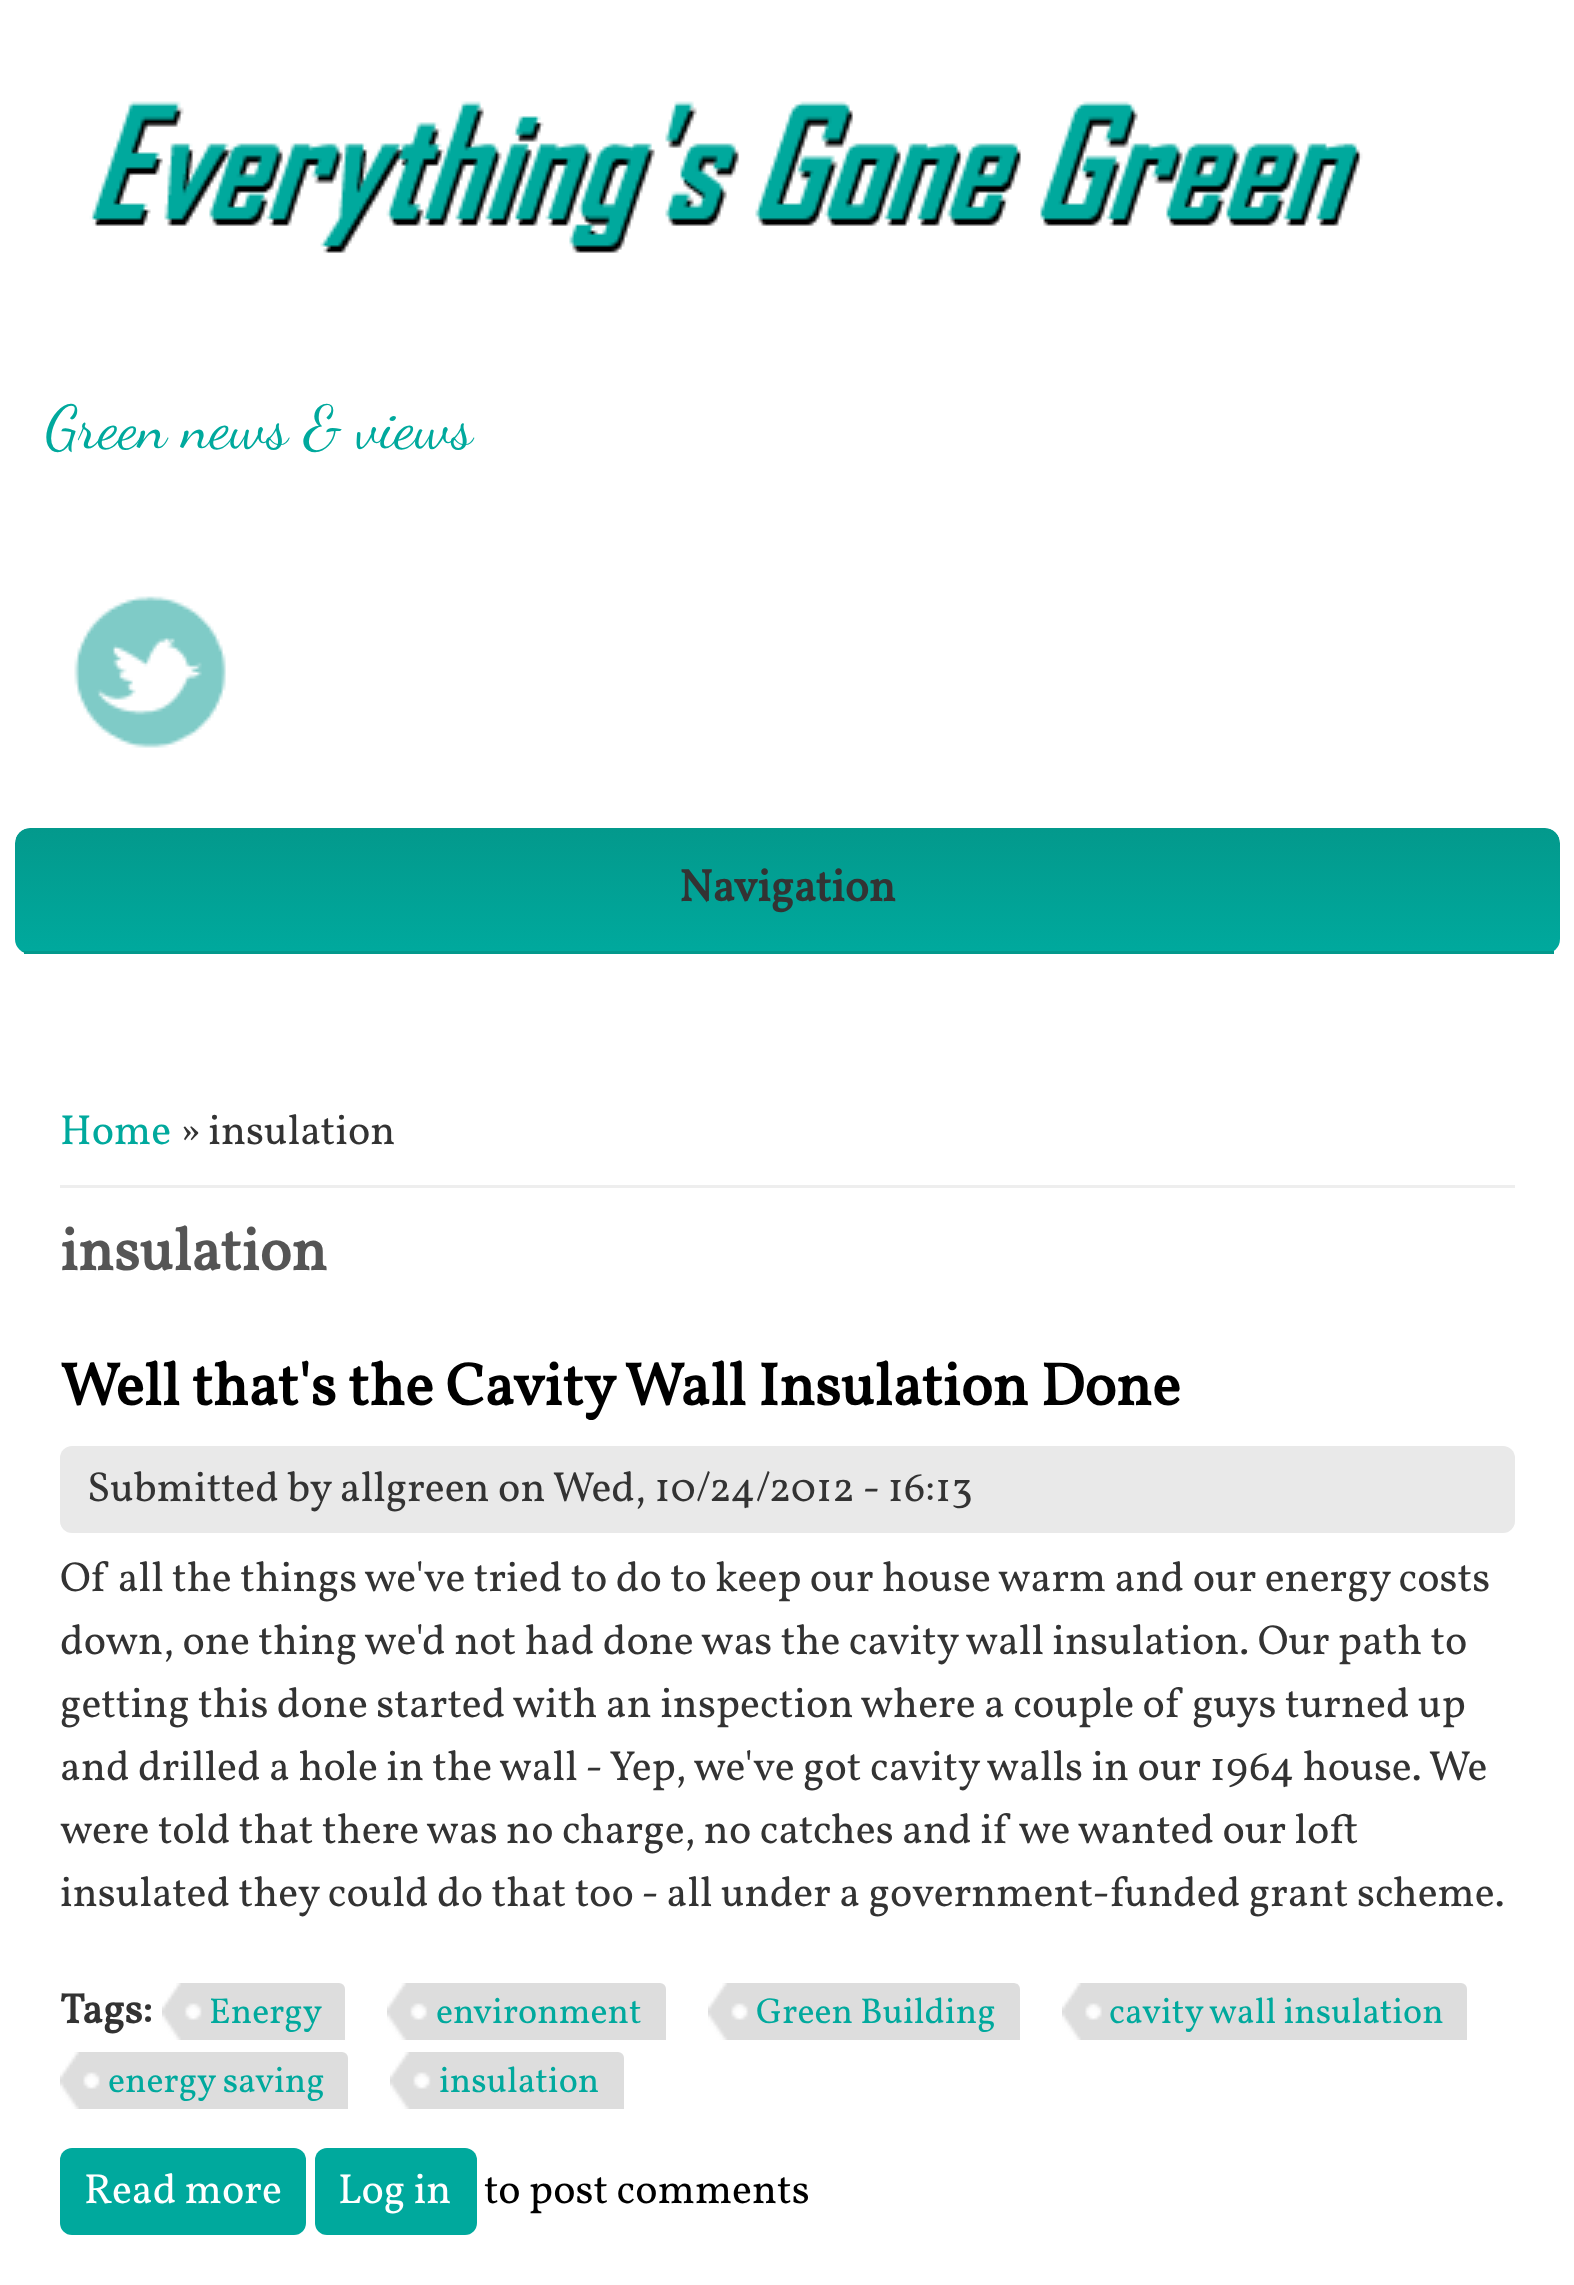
<svg xmlns="http://www.w3.org/2000/svg" xmlns:xlink="http://www.w3.org/1999/xlink" width="1574" height="2285" viewBox="0 0 1574 2285">
<style>
.cls-1{font:60px Dancing Script;fill:#00a99d}
.cls-2{font:bold 45px Vollkorn;fill:#333333}
.cls-3{font:42px Vollkorn;fill:#00a99d}
.cls-4{font:42px Vollkorn;fill:#333333}
.cls-5{font:bold 60px Vollkorn;fill:#555555}
.cls-6{font:bold 60px Vollkorn;fill:#000000}
.cls-7{font:bold 42px Vollkorn;fill:#333333}
.cls-8{font:36px Vollkorn;fill:#00a99d}
.cls-9{font:42px Vollkorn;fill:#ffffff}
.cls-10{font:42px Vollkorn;fill:#000000}
</style>
<defs>
<clipPath id="clip1"><rect x="15" y="828" width="1545" height="126" rx="15"/></clipPath>
<linearGradient id="g1" gradientUnits="userSpaceOnUse" x1="788" y1="828" x2="788" y2="951"><stop offset="0" stop-color="#03998c"/><stop offset="1" stop-color="#00a99d"/></linearGradient>
<linearGradient id="g2" gradientUnits="userSpaceOnUse" x1="788" y1="951" x2="788" y2="1074"><stop offset="0" stop-color="#03998c"/><stop offset="1" stop-color="#00a99d"/></linearGradient>
</defs>
<rect width="100%" height="100%" fill="#ffffff"/>
<image xlink:href="image0.png" x="89" y="101" width="1274" height="152"/>
<image xlink:href="image1.png" x="74" y="596" width="152" height="152"/>
<g clip-path="url(#clip1)">
<path fill="url(#g1)" d="M30 828H1545C1553.5 828 1560 834.5 1560 843V951H15V843C15 834.5 21.5 828 30 828Z"/>
<rect fill="url(#g2)" x="15" y="951" width="9" height="2"/>
</g>
<rect fill="#03998c" x="24" y="951" width="1530" height="3"/>
<rect fill="#eeeeee" x="60" y="1185" width="1455" height="3"/>
<rect fill="#e9e9e9" x="60" y="1446" width="1455" height="87" rx="12"/>
<image xlink:href="image2.png" x="162" y="1983" width="183" height="57"/>
<image xlink:href="image3.png" x="387" y="1983" width="279" height="57"/>
<image xlink:href="image4.png" x="708" y="1983" width="312" height="57"/>
<image xlink:href="image5.png" x="1062" y="1983" width="405" height="57"/>
<image xlink:href="image6.png" x="60" y="2052" width="288" height="57"/>
<image xlink:href="image7.png" x="390" y="2052" width="234" height="57"/>
<rect fill="#00a99d" x="60" y="2148" width="246" height="87" rx="12"/>
<rect fill="#00a99d" x="315" y="2148" width="162" height="87" rx="12"/>
<text class="cls-1" x="45" y="447">Green news &amp; views</text>
<text class="cls-2" x="679" y="901">Navigation</text>
<text class="cls-3" x="60" y="1144">Home</text>
<text class="cls-4" x="179" y="1144">» insulation</text>
<text class="cls-5" x="60" y="1270">insulation</text>
<text class="cls-6" x="60" y="1405">Well that's the Cavity Wall Insulation Done</text>
<text class="cls-4" x="87" y="1501">Submitted by allgreen on Wed, 10/24/2012 - 16:13</text>
<text class="cls-4"><tspan x="60" y="1591">Of all the things we've tried to do to keep our house warm and our energy costs</tspan><tspan x="60" y="1654">down, one thing we'd not had done was the cavity wall insulation. Our path to</tspan><tspan x="60" y="1717">getting this done started with an inspection where a couple of guys turned up</tspan><tspan x="60" y="1780">and drilled a hole in the wall - Yep, we've got cavity walls in our 1964 house. We</tspan><tspan x="60" y="1843">were told that there was no charge, no catches and if we wanted our loft</tspan><tspan x="60" y="1906">insulated they could do that too - all under a government-funded grant scheme.</tspan></text>
<text class="cls-7" x="60" y="2023">Tags:</text>
<text class="cls-8" x="209" y="2023">Energy</text>
<text class="cls-8" x="436" y="2023">environment</text>
<text class="cls-8" x="756" y="2023">Green Building</text>
<text class="cls-8" x="1109" y="2023">cavity wall insulation</text>
<text class="cls-8" x="108" y="2092">energy saving</text>
<text class="cls-8" x="439" y="2092">insulation</text>
<text class="cls-9" x="84" y="2203">Read more</text>
<text class="cls-9" x="338" y="2203">Log in</text>
<text class="cls-10" x="484" y="2203">to post comments</text>
</svg>
